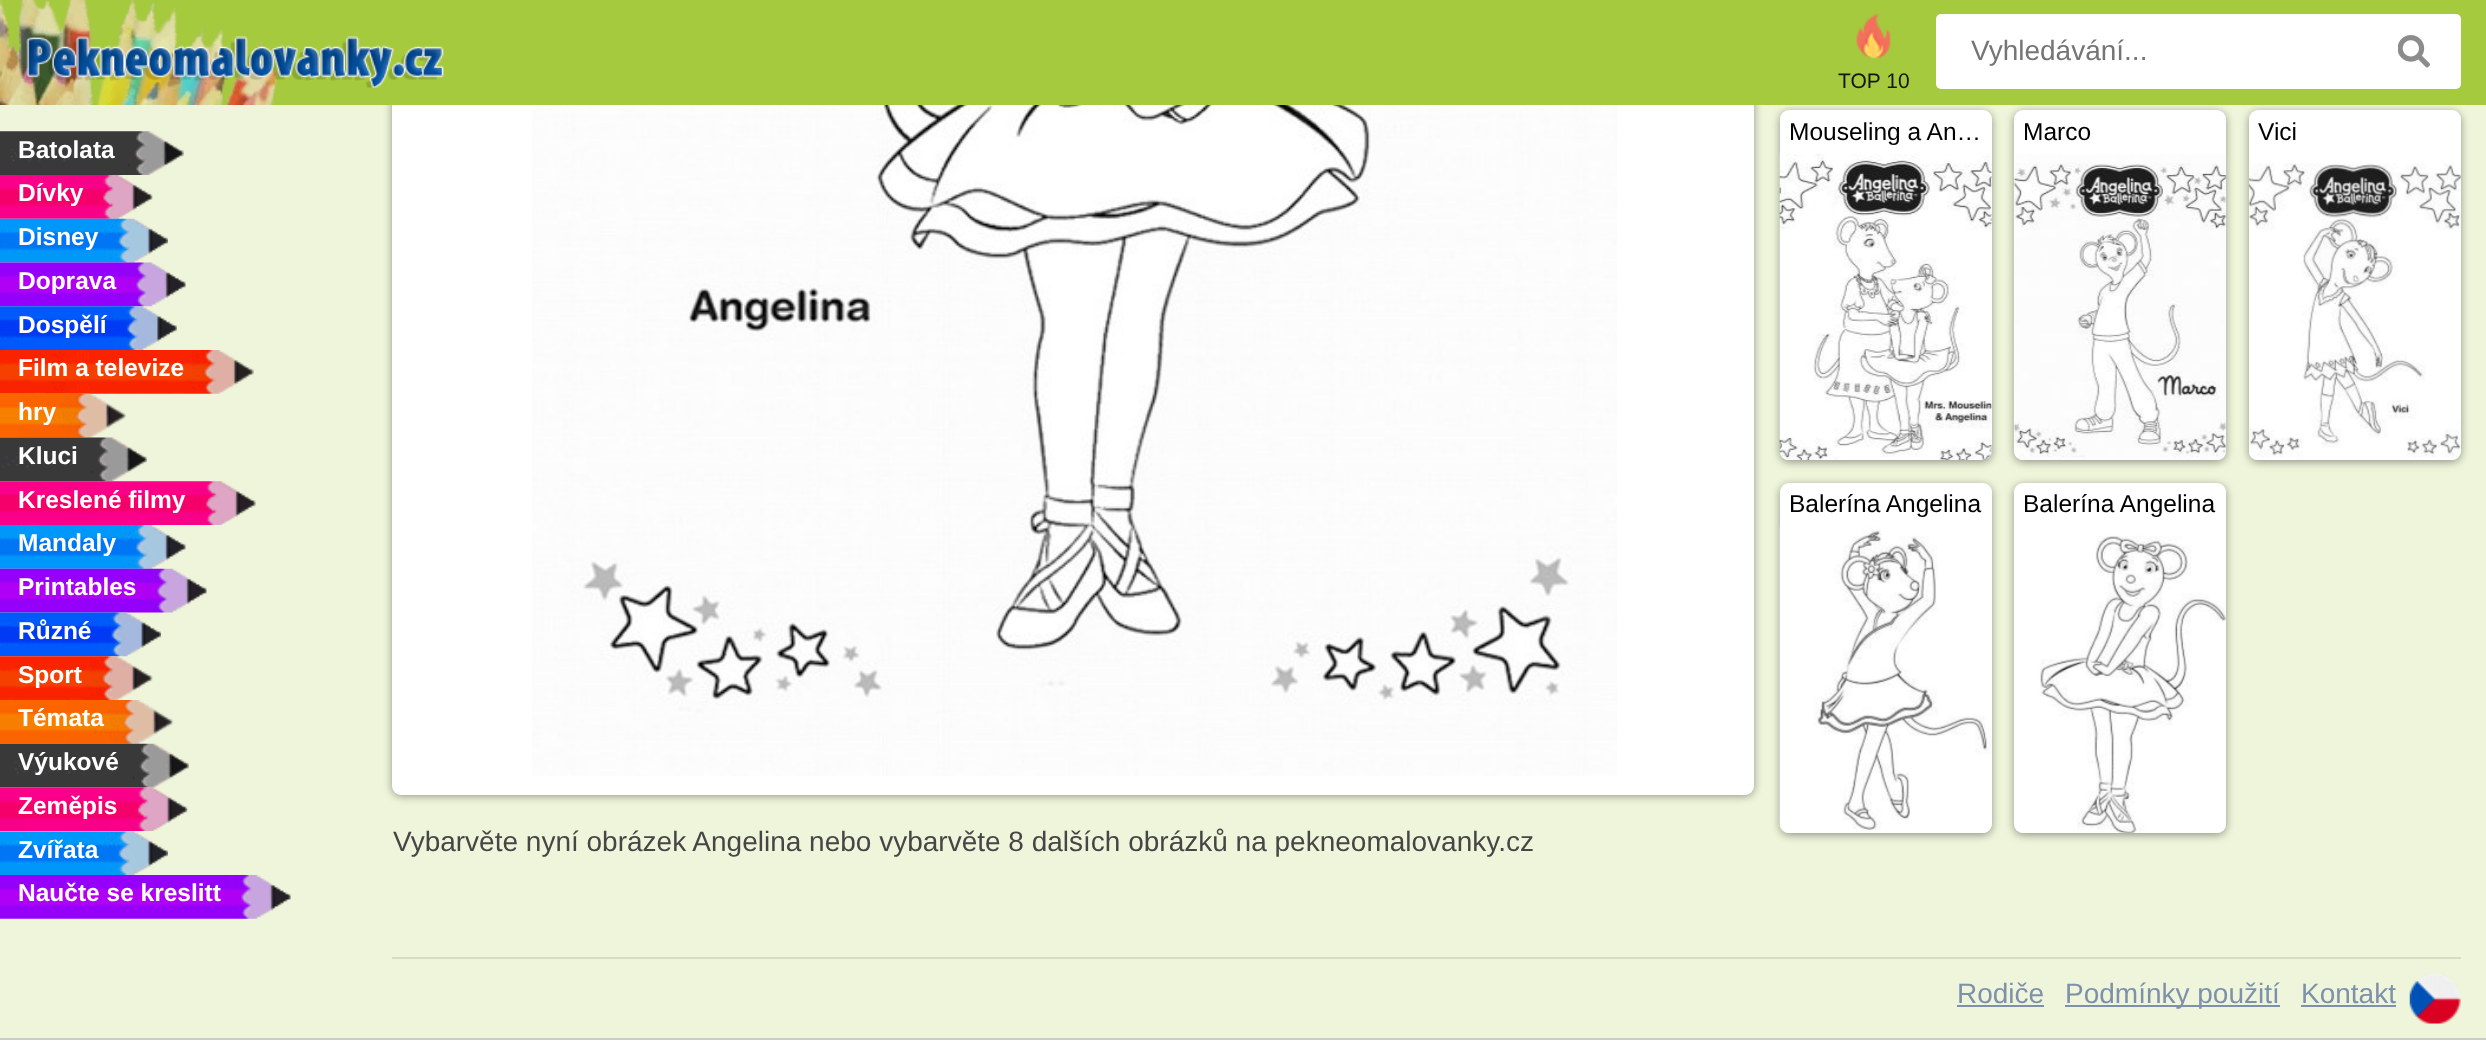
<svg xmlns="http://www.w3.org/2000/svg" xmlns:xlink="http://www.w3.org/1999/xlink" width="2486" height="1056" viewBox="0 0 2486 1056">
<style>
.cls-1{font:28px Liberation Sans;fill:#757575}
.cls-2{font:21px Liberation Sans;fill:#171616}
.cls-3{font:bold 24.5px Liberation Sans;fill:#ffffff}
.cls-4{font:24.5px Liberation Sans;fill:#000000}
.cls-5{font:28px Liberation Sans;fill:#464646}
.cls-6{font:28px Liberation Sans;fill:#7e91ab}
</style>
<rect width="100%" height="100%" fill="#eef5db"/>
<rect fill="#000000" fill-opacity="0.4" filter="blur(4.5px)" x="1780" y="112" width="212" height="350" rx="9"/>
<rect fill="#000000" fill-opacity="0.4" filter="blur(4.5px)" x="2014" y="112" width="212" height="350" rx="9"/>
<rect fill="#000000" fill-opacity="0.4" filter="blur(4.5px)" x="2249" y="112" width="212" height="350" rx="9"/>
<rect fill="#000000" fill-opacity="0.4" filter="blur(4.5px)" x="392" y="-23" width="1362" height="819" rx="9"/>
<rect fill="#ffffff" x="392" y="-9" width="1362" height="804" rx="9"/>
<rect fill="#a5ca3e" x="0" y="0" width="2486" height="105"/>
<image xlink:href="image0.png" x="0" y="0" width="279" height="105"/>
<image xlink:href="image1.png" x="26" y="36" width="418" height="52"/>
<rect fill="#ffffff" x="1936" y="14" width="525" height="75" rx="5"/>
<image xlink:href="image2.png" x="2398" y="35" width="32" height="33"/>
<image xlink:href="image3.png" x="1856" y="14" width="35" height="45"/>
<image xlink:href="image4.png" x="0" y="131" width="184" height="44"/>
<image xlink:href="image5.png" x="0" y="175" width="153" height="44"/>
<image xlink:href="image6.png" x="0" y="218" width="168" height="45"/>
<image xlink:href="image7.png" x="0" y="262" width="186" height="45"/>
<image xlink:href="image8.png" x="0" y="306" width="177" height="44"/>
<image xlink:href="image9.png" x="0" y="350" width="254" height="44"/>
<image xlink:href="image10.png" x="0" y="393" width="126" height="45"/>
<image xlink:href="image11.png" x="0" y="437" width="147" height="45"/>
<image xlink:href="image12.png" x="0" y="481" width="256" height="44"/>
<image xlink:href="image13.png" x="0" y="525" width="186" height="44"/>
<image xlink:href="image14.png" x="0" y="568" width="207" height="45"/>
<image xlink:href="image15.png" x="0" y="612" width="161" height="45"/>
<image xlink:href="image16.png" x="0" y="656" width="153" height="44"/>
<image xlink:href="image17.png" x="0" y="700" width="174" height="44"/>
<image xlink:href="image18.png" x="0" y="743" width="189" height="45"/>
<image xlink:href="image19.png" x="0" y="787" width="188" height="44"/>
<image xlink:href="image20.png" x="0" y="831" width="168" height="44"/>
<image xlink:href="image21.png" x="0" y="875" width="291" height="44"/>
<rect fill="#ffffff" x="1780" y="110" width="212" height="350" rx="9"/>
<image xlink:href="image22.png" x="1779" y="153" width="213" height="307"/>
<rect fill="#ffffff" x="2014" y="110" width="212" height="350" rx="9"/>
<image xlink:href="image23.png" x="2013" y="154" width="214" height="306"/>
<rect fill="#ffffff" x="2249" y="110" width="212" height="350" rx="9"/>
<image xlink:href="image24.png" x="2249" y="163" width="212" height="297"/>
<rect fill="#000000" fill-opacity="0.4" filter="blur(4.5px)" x="1780" y="485" width="212" height="350" rx="9"/>
<rect fill="#ffffff" x="1780" y="483" width="212" height="350" rx="9"/>
<image xlink:href="image25.png" x="1779" y="526" width="213" height="307"/>
<rect fill="#000000" fill-opacity="0.4" filter="blur(4.5px)" x="2014" y="485" width="212" height="350" rx="9"/>
<rect fill="#ffffff" x="2014" y="483" width="212" height="350" rx="9"/>
<image xlink:href="image26.png" x="2013" y="527" width="213" height="306"/>
<image xlink:href="image27.png" x="532" y="105" width="1085" height="671"/>
<rect fill="#d6ddc5" x="392" y="957" width="2069" height="2"/>
<rect fill="#7e91ab" x="1957" y="1005" width="87" height="2"/>
<rect fill="#7e91ab" x="2065" y="1005" width="215" height="2"/>
<rect fill="#7e91ab" x="2301" y="1005" width="95" height="2"/>
<image xlink:href="image28.png" x="2409" y="973" width="52" height="51"/>
<rect fill="#ffffff" x="0" y="1040" width="2486" height="16"/>
<rect fill="#cccccc" x="0" y="1038" width="2486" height="2"/>
<text class="cls-1" x="1971" y="60">Vyhledávání...</text>
<text class="cls-2" x="1838" y="88">TOP 10</text>
<text class="cls-3"><tspan x="18" y="158">Batolata</tspan><tspan x="18" y="201">Dívky</tspan><tspan x="18" y="245">Disney</tspan><tspan x="18" y="289">Doprava</tspan><tspan x="18" y="333">Dospělí</tspan><tspan x="18" y="376">Film a televize</tspan><tspan x="18" y="420">hry</tspan><tspan x="18" y="464">Kluci</tspan><tspan x="18" y="508">Kreslené filmy</tspan><tspan x="18" y="551">Mandaly</tspan><tspan x="18" y="595">Printables</tspan><tspan x="18" y="639">Různé</tspan><tspan x="18" y="683">Sport</tspan><tspan x="18" y="726">Témata</tspan><tspan x="18" y="770">Výukové</tspan><tspan x="18" y="814">Zeměpis</tspan><tspan x="18" y="858">Zvířata</tspan><tspan x="18" y="901">Naučte se kreslitt</tspan></text>
<text class="cls-4" x="1789" y="140">Mouseling a An…</text>
<text class="cls-4" x="2023" y="140">Marco</text>
<text class="cls-4" x="2258" y="140">Vici</text>
<text class="cls-4" x="1789" y="512">Balerína Angelina</text>
<text class="cls-4" x="2023" y="512">Balerína Angelina</text>
<text class="cls-5" x="393" y="851">Vybarvěte nyní obrázek Angelina nebo vybarvěte 8 dalších obrázků na pekneomalovanky.cz</text>
<text class="cls-6" x="1957" y="1003">Rodiče</text>
<text class="cls-6" x="2065" y="1003">Podmínky použití</text>
<text class="cls-6" x="2301" y="1003">Kontakt</text>
</svg>
